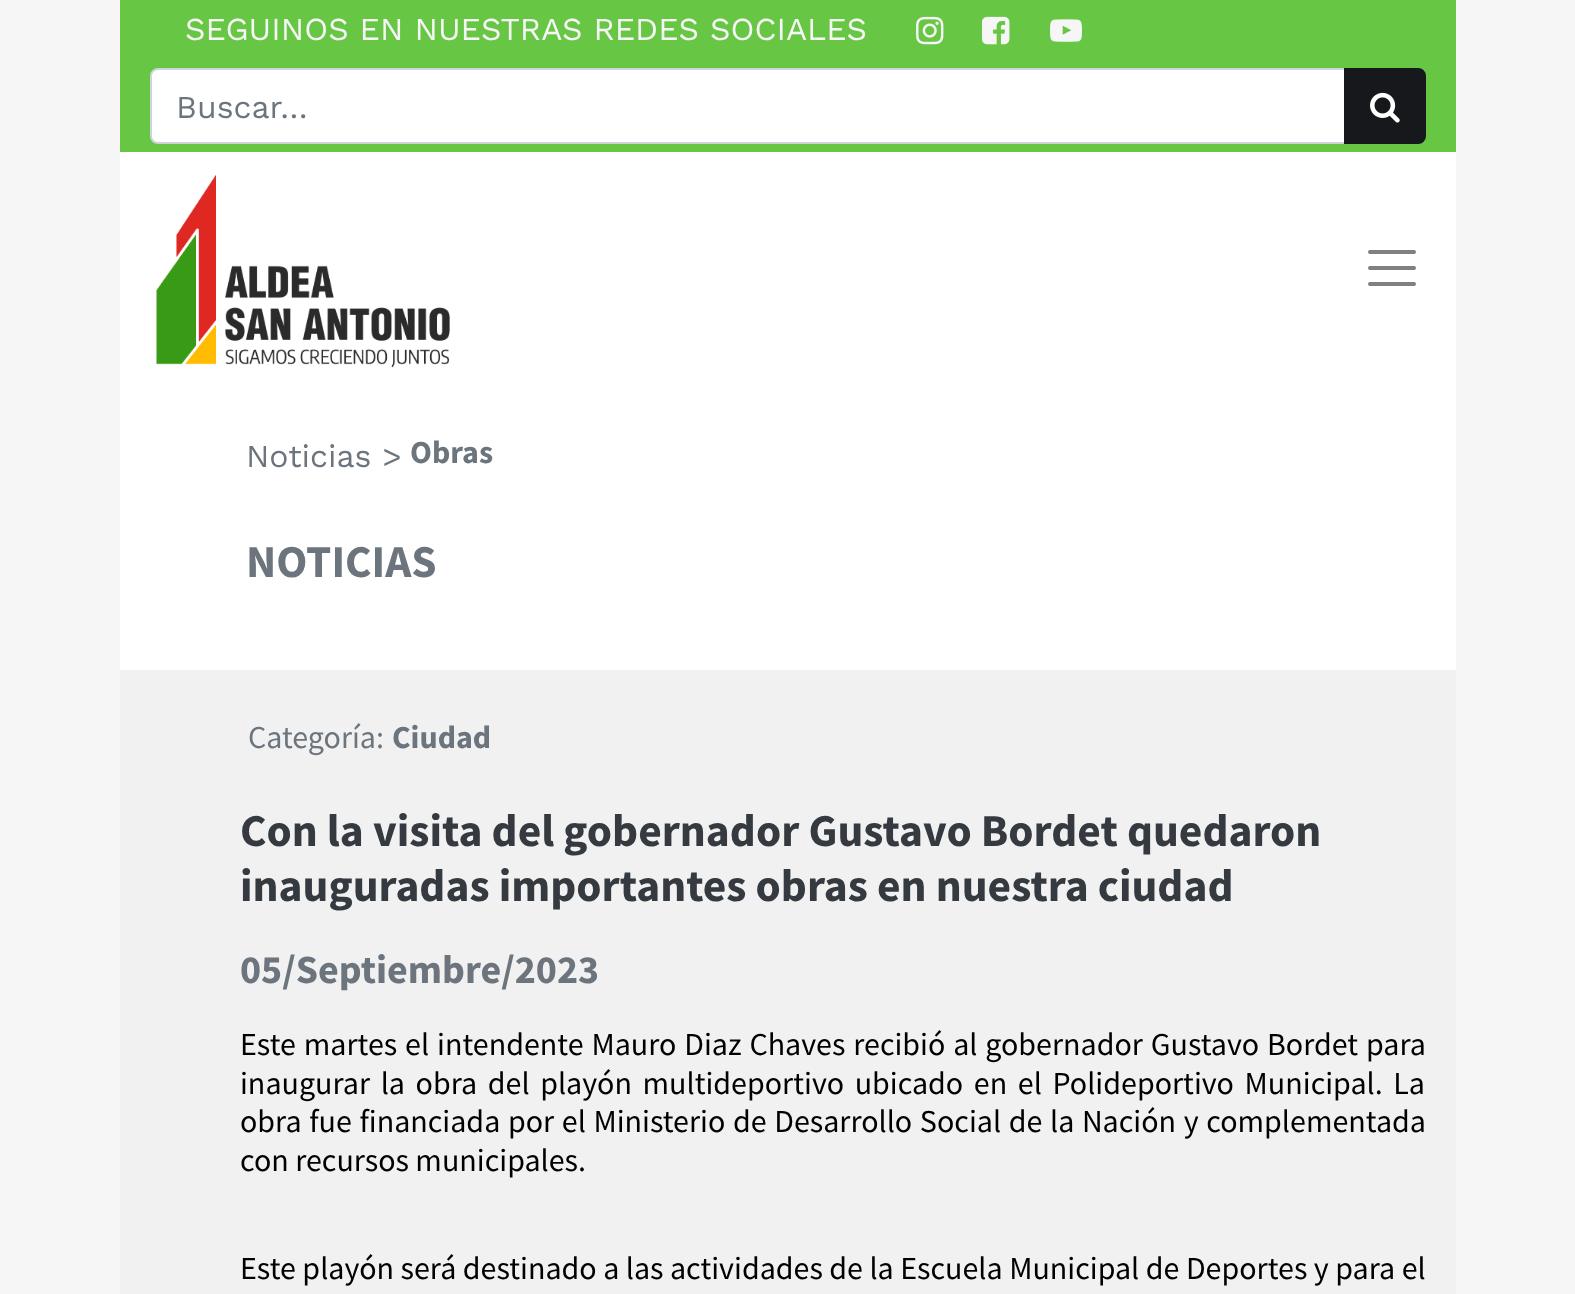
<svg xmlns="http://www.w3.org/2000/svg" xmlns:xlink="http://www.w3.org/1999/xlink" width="1575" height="1294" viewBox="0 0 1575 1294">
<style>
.cls-1{font:32px Work Sans;fill:#f6f6f6}
.cls-2{font:32px Work Sans;fill:#6c757d}
.cls-3{font:bold 32px Source Sans Pro;fill:#6c757d}
.cls-4{font:bold 45.5px Source Sans Pro;fill:#6c757d}
.cls-5{font:32px Source Sans Pro;fill:#6c757d}
.cls-6{font:bold 45.5px Source Sans Pro;fill:#343a40}
.cls-7{font:bold 40px Source Sans Pro;fill:#6c757d}
.cls-8{font:32px Source Sans Pro;fill:#000000}
</style>
<rect width="100%" height="100%" fill="#f6f6f6"/>
<rect fill="#67c744" x="120" y="0" width="1336" height="152"/>
<image xlink:href="image0.png" x="916" y="16" width="28" height="29"/>
<image xlink:href="image1.png" x="982" y="16" width="28" height="29"/>
<image xlink:href="image2.png" x="1050" y="19" width="32" height="23"/>
<path fill="#ffffff" stroke="#ced4da" stroke-width="2" d="M158 69H1345V143H158C154 143 151 140 151 136V76C151 72 154 69 158 69Z"/>
<path fill="#16181b" stroke="#16181b" stroke-width="2" d="M1345 69H1418C1422 69 1425 72 1425 76V136C1425 140 1422 143 1418 143H1345Z"/>
<image xlink:href="image3.png" x="1370" y="92" width="30" height="31"/>
<rect fill="#ffffff" x="120" y="152" width="1336" height="518"/>
<image xlink:href="image4.png" x="156" y="175" width="294" height="193"/>
<path fill="none" stroke="#808080" stroke-width="4" stroke-linecap="round" d="M1370 252H1414M1370 268H1414M1370 284H1414"/>
<rect fill="#f1f1f1" x="120" y="670" width="1336" height="624"/>
<text class="cls-1" x="185" y="40">SEGUINOS EN NUESTRAS REDES SOCIALES</text>
<text class="cls-2" x="176" y="118">Buscar…</text>
<text class="cls-2" x="246" y="467">Noticias &gt;</text>
<text class="cls-3" x="410" y="463">Obras</text>
<text class="cls-4" x="246" y="577">NOTICIAS</text>
<text class="cls-5" x="248" y="748">Categoría:</text>
<text class="cls-3" x="392" y="748">Ciudad</text>
<text class="cls-6"><tspan x="240" y="846">Con la visita del gobernador Gustavo Bordet quedaron</tspan><tspan x="240" y="901">inauguradas importantes obras en nuestra ciudad</tspan></text>
<text class="cls-7" x="240" y="983">05/Septiembre/2023</text>
<text class="cls-8"><tspan x="240" y="1055" word-spacing="1.5">Este martes el intendente Mauro Diaz Chaves recibió al gobernador Gustavo Bordet para</tspan><tspan x="240" y="1094" word-spacing="4.25">inaugurar la obra del playón multideportivo ubicado en el Polideportivo Municipal. La</tspan><tspan x="240" y="1132" word-spacing="1.25">obra fue financiada por el Ministerio de Desarrollo Social de la Nación y complementada</tspan><tspan x="240" y="1171">con recursos municipales.</tspan></text>
<text class="cls-8" x="240" y="1279" word-spacing="0.1">Este playón será destinado a las actividades de la Escuela Municipal de Deportes y para el</text>
</svg>
